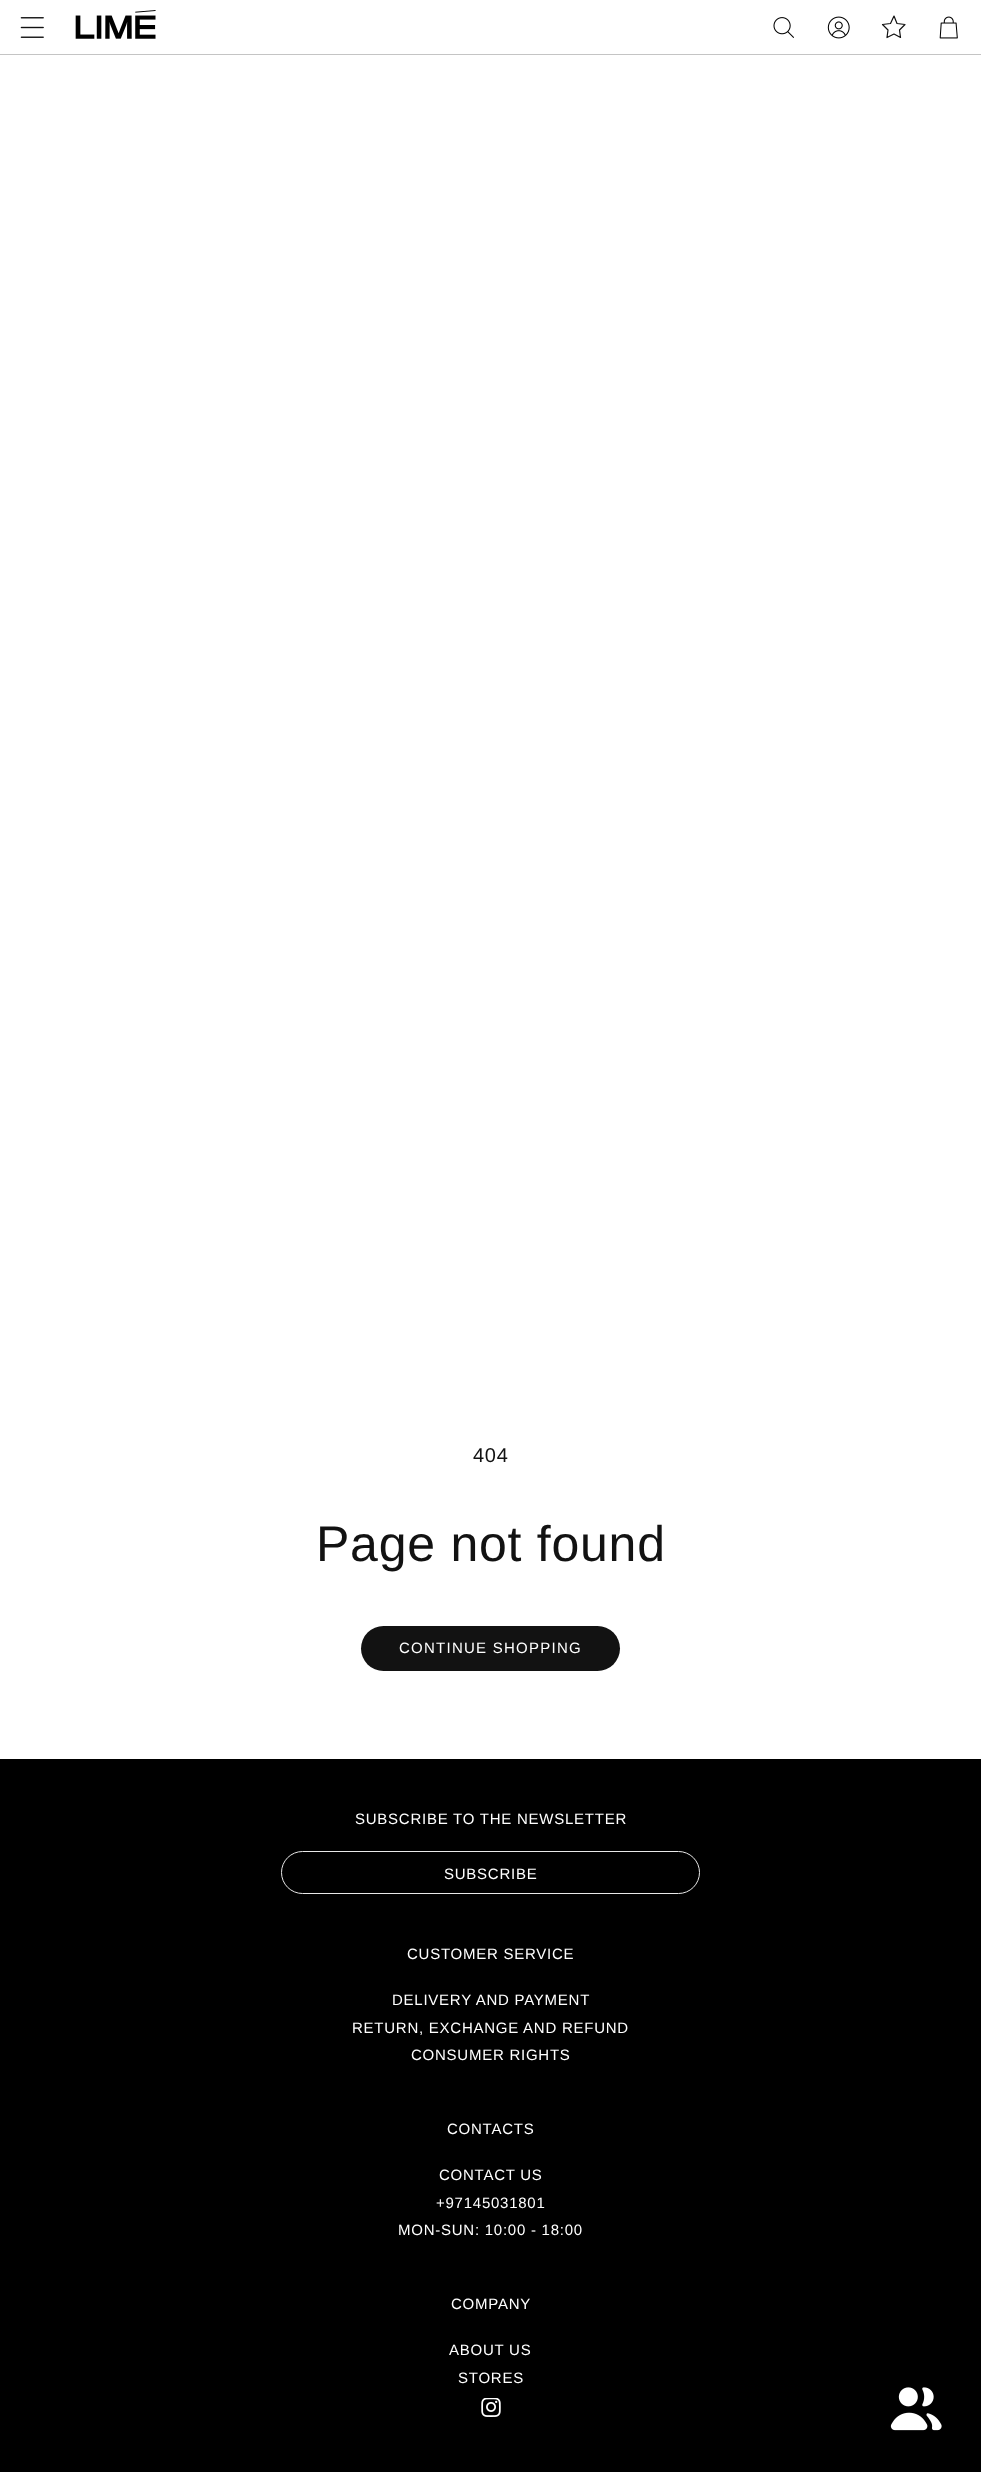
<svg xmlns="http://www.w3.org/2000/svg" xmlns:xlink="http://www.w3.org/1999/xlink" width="981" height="2472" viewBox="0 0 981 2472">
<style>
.cls-1{font:20px Liberation Sans;letter-spacing:0.75px;fill:#121212}
.cls-2{font:50px Liberation Sans;letter-spacing:0.75px;fill:#121212}
.cls-3{font:15px Liberation Sans;letter-spacing:1.25px;fill:#ffffff}
.cls-4{font:15px Liberation Sans;letter-spacing:0.75px;fill:#ffffff}
</style>
<rect width="100%" height="100%" fill="#ffffff"/>
<rect fill="#c4c4c4" x="0" y="54" width="981" height="1"/>
<image xlink:href="image0.png" x="20" y="17" width="24" height="21"/>
<image xlink:href="image1.png" x="75" y="10" width="81" height="29"/>
<image xlink:href="image2.png" x="773" y="17" width="21" height="21"/>
<image xlink:href="image3.png" x="827" y="16" width="23" height="23"/>
<path fill="none" stroke="#121212" stroke-width="1.2" stroke-linejoin="round" d="M894 16L897 23.5L905 24.5L899.5 30L900.5 37.5L894 34L887 37.5L888 30L882.5 24.5L890.5 23.5Z"/>
<image xlink:href="image4.png" x="939" y="16" width="19" height="23"/>
<rect fill="#121212" x="361" y="1626" width="259" height="45" rx="22.5"/>
<rect fill="#000000" x="0" y="1759" width="981" height="713"/>
<rect fill="none" stroke="#e8e8e8" x="281.5" y="1851.5" width="418" height="42" rx="21"/>
<image xlink:href="image5.png" x="481" y="2398" width="20" height="19"/>
<image xlink:href="image6.png" x="890" y="2387" width="52" height="44"/>
<text class="cls-1" x="473" y="1462">404</text>
<text class="cls-2" x="316" y="1561">Page not found</text>
<text class="cls-3" x="399" y="1653">CONTINUE SHOPPING</text>
<text class="cls-4" x="355" y="1824">SUBSCRIBE TO THE NEWSLETTER</text>
<text class="cls-4" x="444" y="1879">SUBSCRIBE</text>
<text class="cls-4" x="407" y="1959">CUSTOMER SERVICE</text>
<text class="cls-4" x="392" y="2005">DELIVERY AND PAYMENT</text>
<text class="cls-4" x="352" y="2033">RETURN, EXCHANGE AND REFUND</text>
<text class="cls-4" x="411" y="2060">CONSUMER RIGHTS</text>
<text class="cls-4" x="447" y="2134">CONTACTS</text>
<text class="cls-4" x="439" y="2180">CONTACT US</text>
<text class="cls-4" x="436" y="2208">+97145031801</text>
<text class="cls-4" x="398" y="2235">MON-SUN: 10:00 - 18:00</text>
<text class="cls-4" x="451" y="2309">COMPANY</text>
<text class="cls-4" x="449" y="2355">ABOUT US</text>
<text class="cls-4" x="458" y="2383">STORES</text>
</svg>
